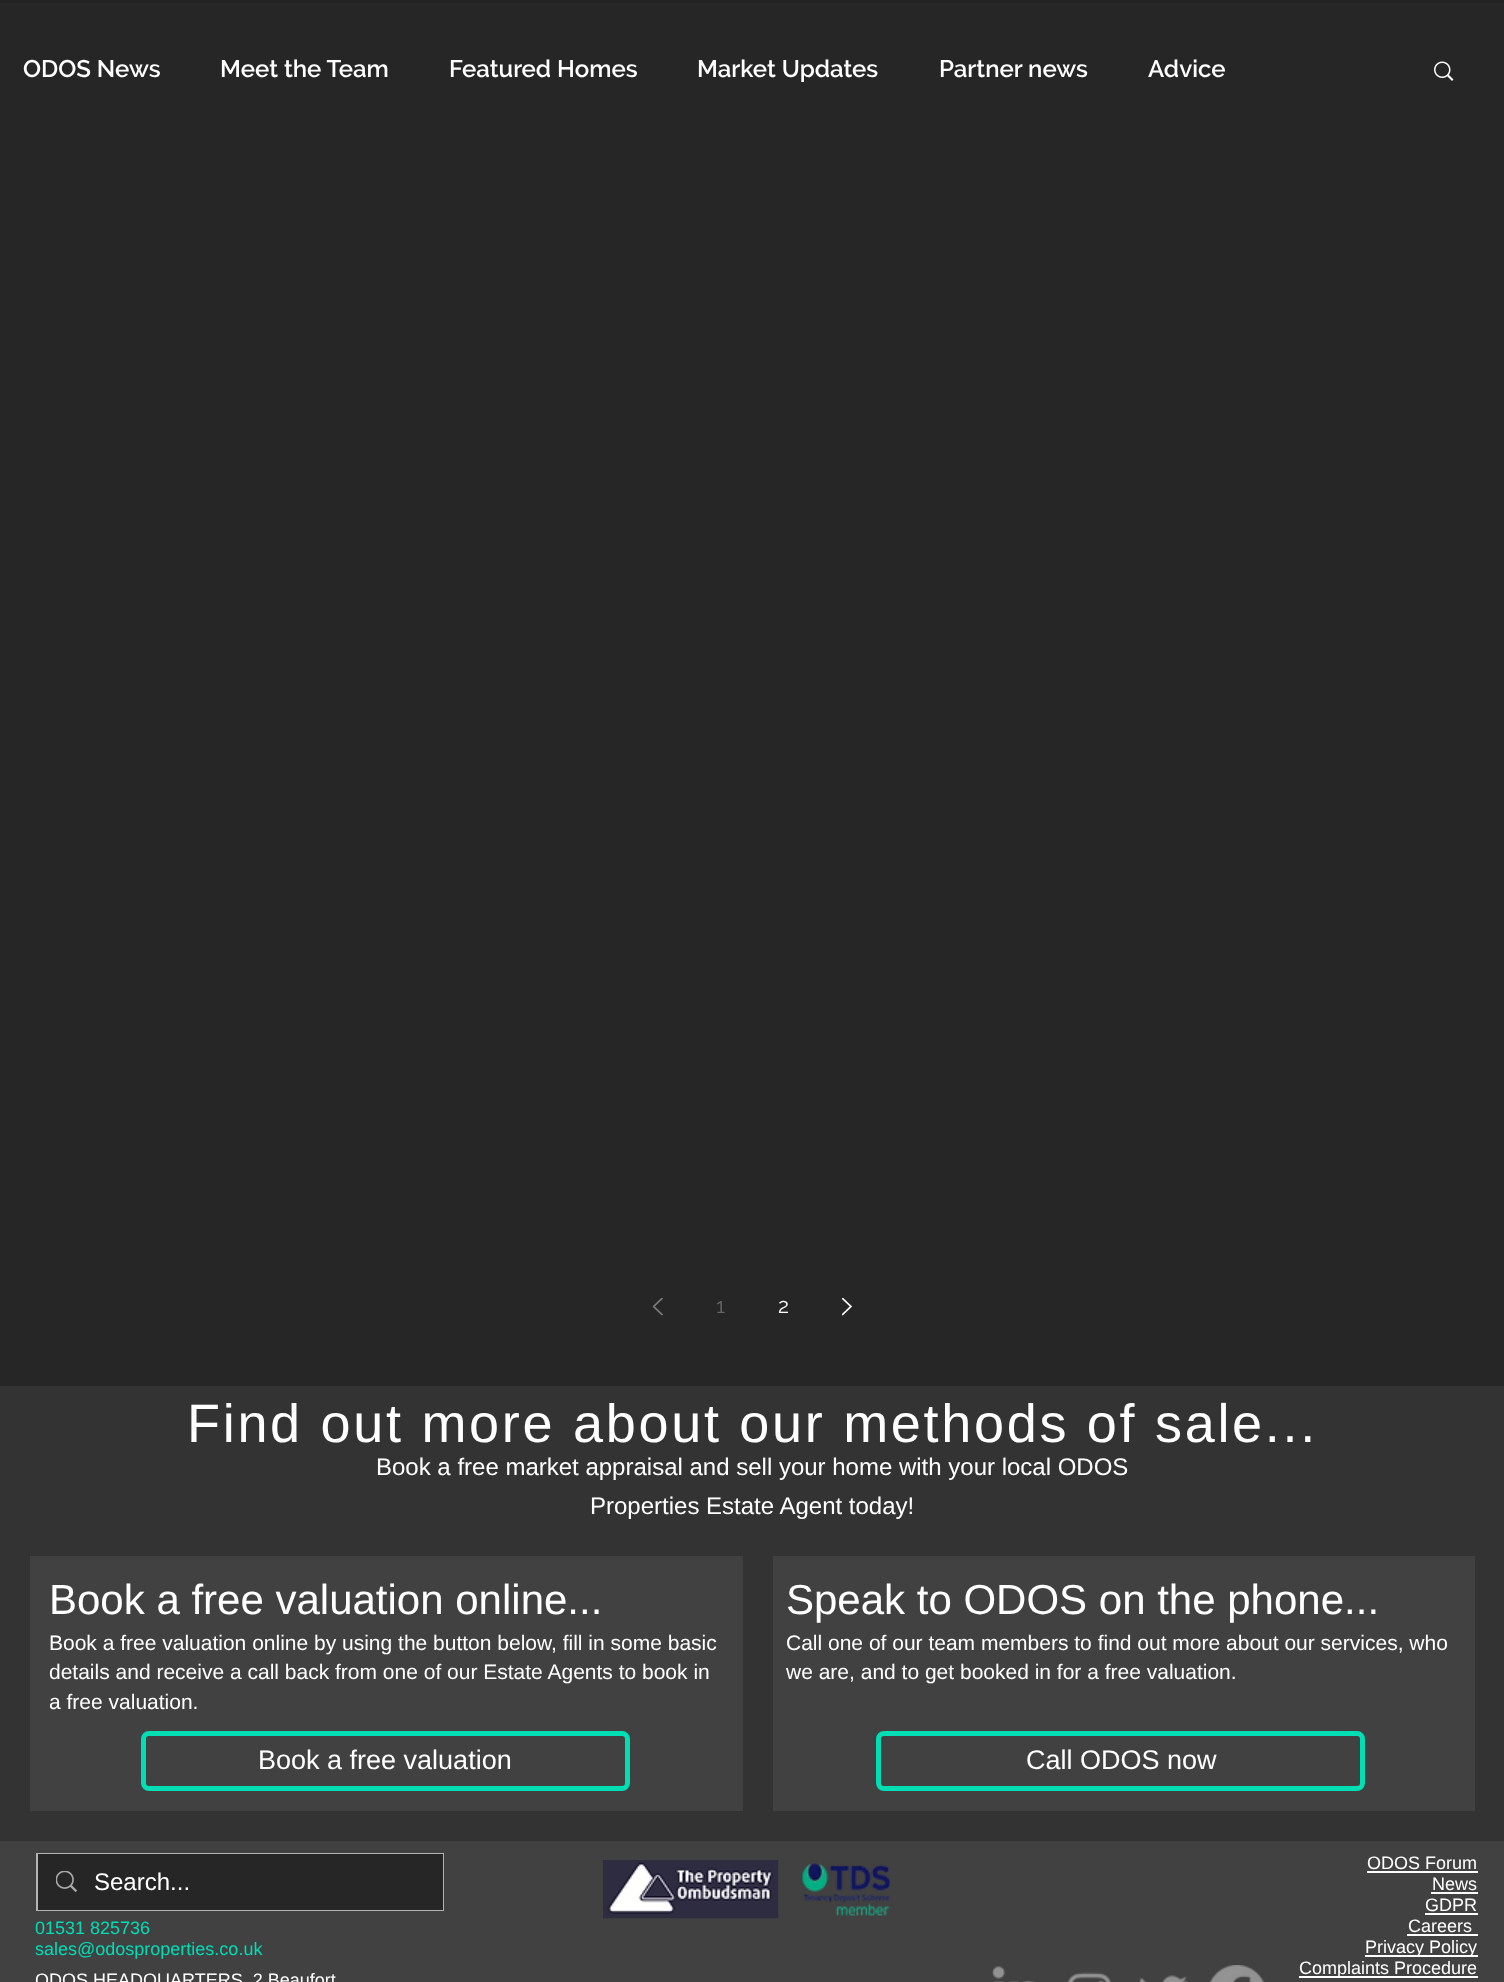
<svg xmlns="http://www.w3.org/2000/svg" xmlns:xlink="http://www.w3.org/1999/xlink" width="1504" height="1982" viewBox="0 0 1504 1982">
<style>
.cls-1{font:600 24px Raleway;fill:#ffffff}
.cls-2{font:21px Raleway;fill:#666666}
.cls-3{font:21px Raleway;fill:#ffffff}
.cls-4{font:54px Liberation Sans;letter-spacing:2.7px;fill:#ffffff}
.cls-5{font:24px Liberation Sans;fill:#ffffff}
.cls-6{font:42px Liberation Sans;fill:#ffffff}
.cls-7{font:21px Liberation Sans;fill:#ffffff}
.cls-8{font:27px Liberation Sans;fill:#ffffff}
.cls-9{font:18px Liberation Sans;fill:#ffffff}
.cls-10{font:18px Liberation Sans;fill:#00deb7}
</style>
<rect width="100%" height="100%" fill="#262626"/>
<rect fill="#242323" x="0" y="0" width="1504" height="3"/>
<image xlink:href="image0.png" x="1434" y="61" width="20" height="20"/>
<image xlink:href="image1.png" x="653" y="1298" width="10" height="18"/>
<image xlink:href="image2.png" x="842" y="1298" width="10" height="18"/>
<rect fill="#333333" x="0" y="1386" width="1504" height="455"/>
<rect fill="#414141" x="30" y="1556" width="713" height="255"/>
<rect fill="none" stroke="#00deb6" stroke-width="5" x="143.5" y="1733.5" width="484" height="55" rx="5.5"/>
<rect fill="#414141" x="773" y="1556" width="702" height="255"/>
<rect fill="none" stroke="#00deb6" stroke-width="5" x="878.5" y="1733.5" width="484" height="55" rx="5.5"/>
<rect fill="#414141" x="0" y="1841" width="1504" height="141"/>
<rect fill="none" stroke="#b3b3b3" stroke-width="2" x="37" y="1854" width="406" height="56"/>
<rect fill="#262626" x="38" y="1854" width="405" height="56"/>
<image xlink:href="image3.png" x="56" y="1871" width="21" height="21"/>
<image xlink:href="image4.png" x="603" y="1860" width="176" height="59"/>
<image xlink:href="image5.png" x="802" y="1863" width="89" height="53"/>
<rect fill="#ffffff" x="1367" y="1871" width="111" height="2"/>
<rect fill="#ffffff" x="1431" y="1892" width="47" height="2"/>
<rect fill="#ffffff" x="1425" y="1913" width="53" height="2"/>
<rect fill="#ffffff" x="1407" y="1934" width="71" height="2"/>
<rect fill="#ffffff" x="1365" y="1955" width="113" height="2"/>
<rect fill="#ffffff" x="1299" y="1976" width="179" height="2"/>
<image xlink:href="image6.png" x="992" y="1966" width="43" height="16"/>
<image xlink:href="image7.png" x="1067" y="1972" width="45" height="10"/>
<image xlink:href="image8.png" x="1139" y="1975" width="49" height="7"/>
<image xlink:href="image9.png" x="1209" y="1965" width="56" height="17"/>
<text class="cls-1" x="23" y="77">ODOS News</text>
<text class="cls-1" x="220" y="77">Meet the Team</text>
<text class="cls-1" x="449" y="77">Featured Homes</text>
<text class="cls-1" x="697" y="77">Market Updates</text>
<text class="cls-1" x="939" y="77">Partner news</text>
<text class="cls-1" x="1148" y="77">Advice</text>
<text class="cls-2" x="716" y="1313">1</text>
<text class="cls-3" x="778" y="1313">2</text>
<text class="cls-4" x="187" y="1442">Find out more about our methods of sale...</text>
<text class="cls-5" x="376" y="1475">Book a free market appraisal and sell your home with your local ODOS</text>
<text class="cls-5" x="590" y="1514">Properties Estate Agent today!</text>
<text class="cls-6" x="49" y="1614">Book a free valuation online...</text>
<text class="cls-7"><tspan x="49" y="1650">Book a free valuation online by using the button below, fill in some basic</tspan><tspan x="49" y="1679">details and receive a call back from one of our Estate Agents to book in</tspan><tspan x="49" y="1709">a free valuation.</tspan></text>
<text class="cls-8" x="258" y="1769">Book a free valuation</text>
<text class="cls-6" x="786" y="1614">Speak to ODOS on the phone...</text>
<text class="cls-7"><tspan x="786" y="1650">Call one of our team members to find out more about our services, who</tspan><tspan x="786" y="1679">we are, and to get booked in for a free valuation.</tspan></text>
<text class="cls-8" x="1026" y="1769">Call ODOS now</text>
<text class="cls-5" x="94" y="1890">Search...</text>
<text class="cls-9" x="1367" y="1869">ODOS Forum</text>
<text class="cls-9" x="1432" y="1890">News</text>
<text class="cls-9" x="1425" y="1911">GDPR</text>
<text class="cls-9" x="1408" y="1932">Careers</text>
<text class="cls-9" x="1365" y="1953">Privacy Policy</text>
<text class="cls-9" x="1299" y="1974">Complaints Procedure</text>
<text class="cls-10"><tspan x="35" y="1934">01531 825736</tspan><tspan x="35" y="1955">sales@odosproperties.co.uk</tspan></text>
<text class="cls-9" x="35" y="1986">ODOS HEADQUARTERS, 2 Beaufort</text>
</svg>
